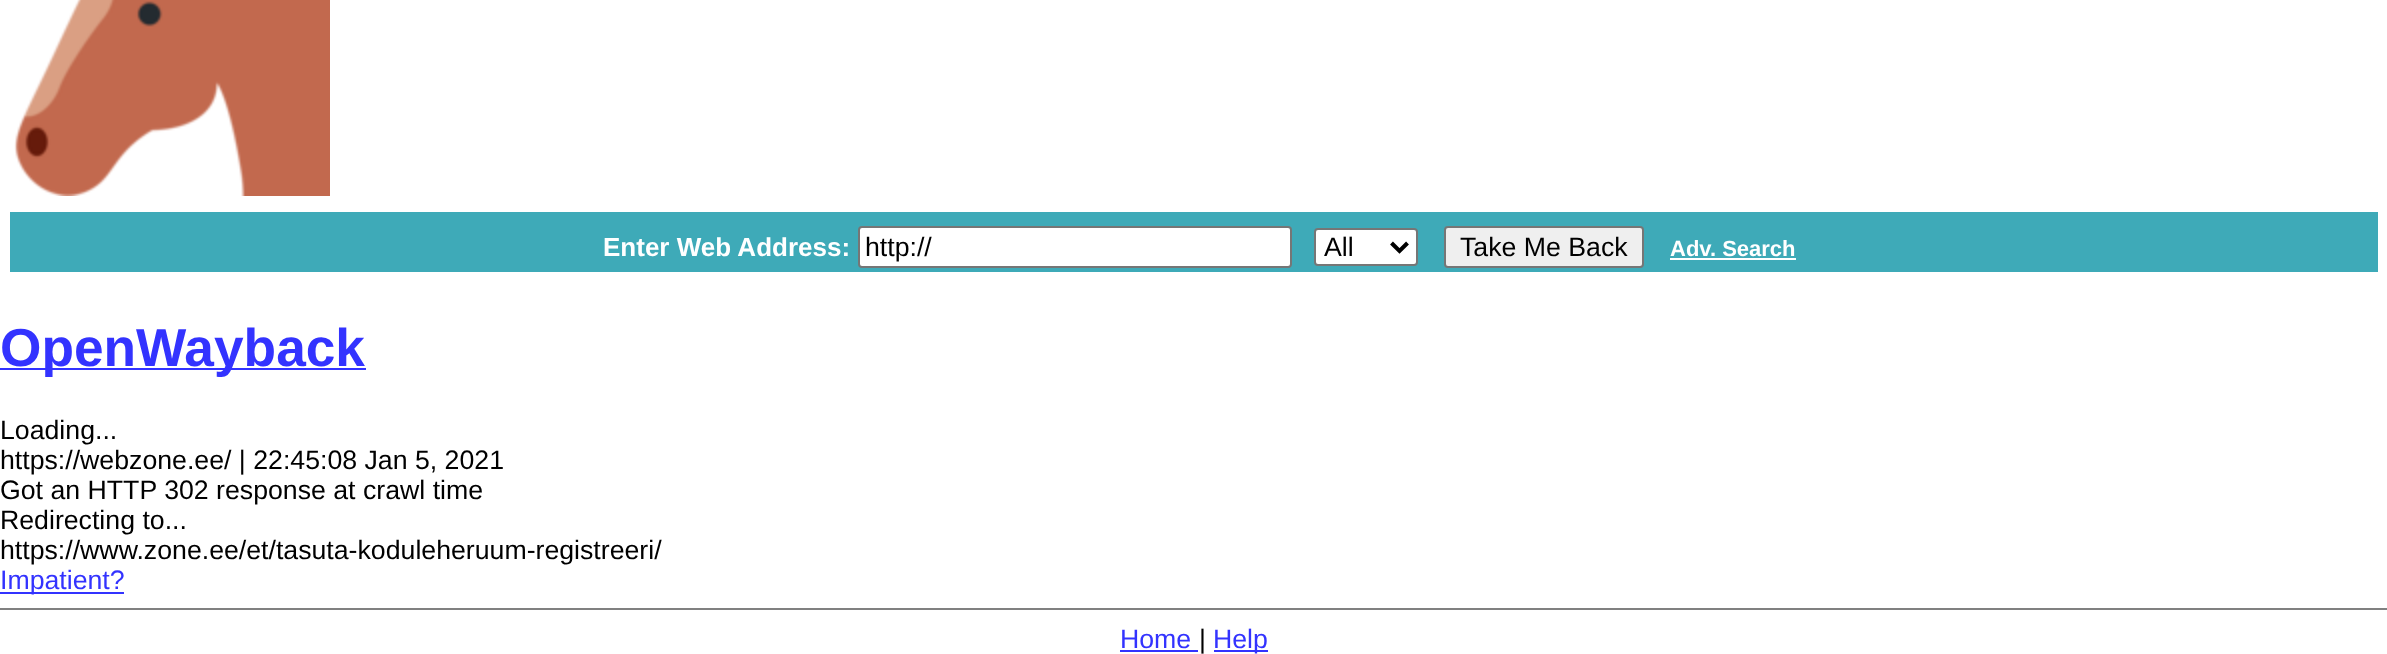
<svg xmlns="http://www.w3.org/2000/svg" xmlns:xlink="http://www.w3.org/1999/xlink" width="2387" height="654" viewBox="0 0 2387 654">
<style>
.cls-1{font:bold 26px Liberation Sans;fill:#ffffff}
.cls-2{font:26.7px Liberation Sans;fill:#000000}
.cls-3{font:bold 22px Liberation Sans;fill:#ffffff}
.cls-4{font:bold 53.25px Liberation Sans;fill:#3333ff}
.cls-5{font:26.7px Liberation Sans;fill:#3333ff}
</style>
<rect width="100%" height="100%" fill="#ffffff"/>
<image xlink:href="image0.png" x="14" y="0" width="316" height="196"/>
<rect fill="#3eaab8" x="10" y="212" width="2368" height="60"/>
<rect fill="#ffffff" stroke="#767676" stroke-width="2" x="859" y="227" width="432" height="40" rx="3"/>
<rect fill="#ffffff" stroke="#767676" stroke-width="2" x="1315" y="229" width="102" height="36" rx="3"/>
<path fill="none" stroke="#000000" stroke-width="4" d="M1391.5 243L1399.5 251L1407.5 243"/>
<rect fill="#efefef" stroke="#767676" stroke-width="2" x="1445" y="227" width="198" height="40" rx="3"/>
<rect fill="#ffffff" x="1670" y="258" width="126" height="2"/>
<rect fill="#3333ff" x="0" y="368" width="366" height="2"/>
<rect fill="#3333ff" x="0" y="592" width="124" height="2"/>
<rect fill="#808080" x="0" y="608" width="2387" height="2"/>
<rect fill="#3333ff" x="1120" y="650" width="78" height="2"/>
<rect fill="#3333ff" x="1214" y="650" width="54" height="2"/>
<text class="cls-1" x="603" y="256">Enter Web Address:</text>
<text class="cls-2" x="865" y="256">http://</text>
<text class="cls-2" x="1324" y="256">All</text>
<text class="cls-2" x="1460" y="256">Take Me Back</text>
<text class="cls-3" x="1670" y="256">Adv. Search</text>
<text class="cls-4" x="0" y="366">OpenWayback</text>
<text class="cls-2"><tspan x="0" y="439">Loading...</tspan><tspan x="0" y="469">https://webzone.ee/ | 22:45:08 Jan 5, 2021</tspan><tspan x="0" y="499">Got an HTTP 302 response at crawl time</tspan><tspan x="0" y="529">Redirecting to...</tspan><tspan x="0" y="559">https://www.zone.ee/et/tasuta-koduleheruum-registreeri/</tspan></text>
<text class="cls-5" x="0" y="589">Impatient?</text>
<text class="cls-5" x="1120" y="648">Home</text>
<text class="cls-2" x="1199" y="648">|</text>
<text class="cls-5" x="1213" y="648">Help</text>
</svg>
